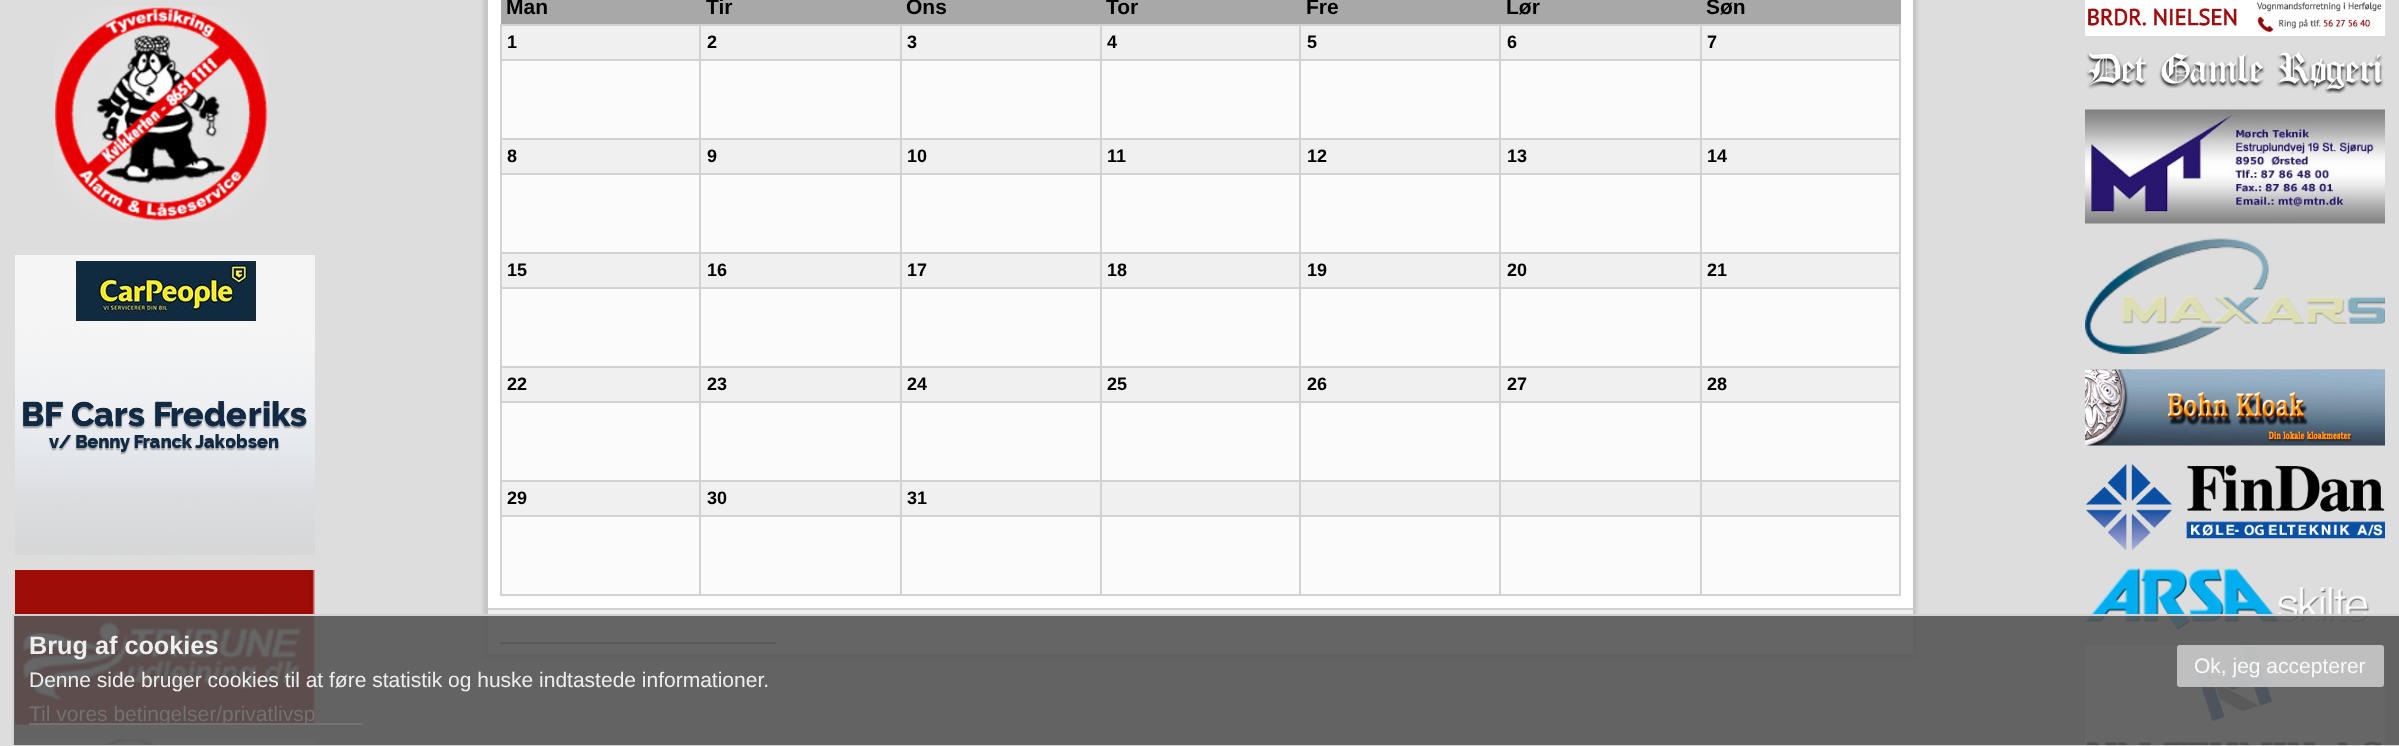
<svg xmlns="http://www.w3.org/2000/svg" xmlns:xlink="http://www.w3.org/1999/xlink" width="2399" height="746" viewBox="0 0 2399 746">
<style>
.cls-1{font:bold 21px Liberation Sans;fill:#000000}
.cls-2{font:bold 18px Liberation Sans;fill:#000000}
.cls-3{font:bold 25.25px Liberation Sans;fill:#efeeee}
.cls-4{font:21px Liberation Sans;fill:#f9f9f9}
.cls-5{font:21px Liberation Sans;fill:#efeeee}
.cls-6{font:21px Liberation Sans;fill:#737171}
</style>
<rect width="100%" height="100%" fill="#dddddd"/>
<image xlink:href="image0.png" x="54" y="6" width="214" height="215"/>
<image xlink:href="image1.png" x="15" y="255" width="300" height="300"/>
<image xlink:href="image2.png" x="15" y="570" width="300" height="155"/>
<image xlink:href="image3.png" x="15" y="739" width="300" height="7"/>
<rect fill="#000000" fill-opacity="0.1" filter="blur(1.5px)" x="483" y="-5" width="1434" height="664"/>
<rect fill="#ffffff" x="488" y="0" width="1425" height="608"/>
<rect fill="#a8a8a8" x="501" y="0" width="1400" height="24"/>
<rect fill="#fbfbfb" x="502" y="61" width="197" height="77"/>
<rect fill="#d2d2d2" x="1700" y="24" width="201" height="2"/>
<rect fill="#d2d2d2" x="1701" y="59" width="198" height="2"/>
<rect fill="#d2d2d2" x="1700" y="138" width="201" height="2"/>
<rect fill="#d2d2d2" x="1701" y="173" width="198" height="2"/>
<rect fill="#d2d2d2" x="1700" y="252" width="201" height="2"/>
<rect fill="#d2d2d2" x="1701" y="287" width="198" height="2"/>
<rect fill="#d2d2d2" x="1700" y="366" width="201" height="2"/>
<rect fill="#d2d2d2" x="1701" y="401" width="198" height="2"/>
<rect fill="#d2d2d2" x="1700" y="480" width="201" height="2"/>
<rect fill="#d2d2d2" x="1899" y="480" width="2" height="116"/>
<rect fill="#d2d2d2" x="1700" y="594" width="201" height="2"/>
<rect fill="#d2d2d2" x="1701" y="515" width="198" height="2"/>
<rect fill="#d2d2d2" x="1700" y="480" width="2" height="116"/>
<rect fill="#d2d2d2" x="1499" y="480" width="202" height="2"/>
<rect fill="#d2d2d2" x="1700" y="366" width="2" height="116"/>
<rect fill="#d2d2d2" x="1499" y="366" width="202" height="2"/>
<rect fill="#d2d2d2" x="1700" y="252" width="2" height="116"/>
<rect fill="#d2d2d2" x="1499" y="252" width="202" height="2"/>
<rect fill="#d2d2d2" x="1700" y="138" width="2" height="116"/>
<rect fill="#d2d2d2" x="1499" y="138" width="202" height="2"/>
<rect fill="#d2d2d2" x="1700" y="24" width="2" height="116"/>
<rect fill="#d2d2d2" x="1499" y="24" width="202" height="2"/>
<rect fill="#d2d2d2" x="1500" y="59" width="200" height="2"/>
<rect fill="#d2d2d2" x="1500" y="173" width="200" height="2"/>
<rect fill="#d2d2d2" x="1500" y="287" width="200" height="2"/>
<rect fill="#d2d2d2" x="1500" y="401" width="200" height="2"/>
<rect fill="#d2d2d2" x="1499" y="594" width="202" height="2"/>
<rect fill="#d2d2d2" x="1500" y="515" width="200" height="2"/>
<rect fill="#d2d2d2" x="1499" y="480" width="2" height="116"/>
<rect fill="#d2d2d2" x="1299" y="480" width="201" height="2"/>
<rect fill="#d2d2d2" x="1499" y="366" width="2" height="116"/>
<rect fill="#d2d2d2" x="1299" y="366" width="201" height="2"/>
<rect fill="#d2d2d2" x="1499" y="252" width="2" height="116"/>
<rect fill="#d2d2d2" x="1299" y="252" width="201" height="2"/>
<rect fill="#d2d2d2" x="1499" y="138" width="2" height="116"/>
<rect fill="#d2d2d2" x="1299" y="138" width="201" height="2"/>
<rect fill="#d2d2d2" x="1499" y="24" width="2" height="116"/>
<rect fill="#d2d2d2" x="1299" y="24" width="201" height="2"/>
<rect fill="#d2d2d2" x="1299" y="594" width="201" height="2"/>
<rect fill="#d2d2d2" x="1299" y="480" width="2" height="116"/>
<rect fill="#d2d2d2" x="1100" y="480" width="201" height="2"/>
<rect fill="#d2d2d2" x="1299" y="366" width="2" height="116"/>
<rect fill="#d2d2d2" x="1100" y="366" width="201" height="2"/>
<rect fill="#d2d2d2" x="1299" y="252" width="2" height="116"/>
<rect fill="#d2d2d2" x="1100" y="252" width="201" height="2"/>
<rect fill="#d2d2d2" x="1299" y="138" width="2" height="116"/>
<rect fill="#d2d2d2" x="1100" y="138" width="201" height="2"/>
<rect fill="#d2d2d2" x="1299" y="24" width="2" height="116"/>
<rect fill="#d2d2d2" x="1100" y="24" width="201" height="2"/>
<rect fill="#d2d2d2" x="1101" y="59" width="198" height="2"/>
<rect fill="#d2d2d2" x="1101" y="173" width="198" height="2"/>
<rect fill="#d2d2d2" x="1101" y="287" width="198" height="2"/>
<rect fill="#d2d2d2" x="1101" y="401" width="198" height="2"/>
<rect fill="#d2d2d2" x="1100" y="594" width="201" height="2"/>
<rect fill="#d2d2d2" x="1101" y="515" width="198" height="2"/>
<rect fill="#d2d2d2" x="1100" y="480" width="2" height="116"/>
<rect fill="#d2d2d2" x="900" y="480" width="201" height="2"/>
<rect fill="#d2d2d2" x="1100" y="366" width="2" height="116"/>
<rect fill="#d2d2d2" x="900" y="366" width="201" height="2"/>
<rect fill="#d2d2d2" x="1100" y="252" width="2" height="116"/>
<rect fill="#d2d2d2" x="900" y="252" width="201" height="2"/>
<rect fill="#d2d2d2" x="1100" y="138" width="2" height="116"/>
<rect fill="#d2d2d2" x="900" y="138" width="201" height="2"/>
<rect fill="#d2d2d2" x="1100" y="24" width="2" height="116"/>
<rect fill="#d2d2d2" x="900" y="24" width="201" height="2"/>
<rect fill="#d2d2d2" x="900" y="594" width="201" height="2"/>
<rect fill="#d2d2d2" x="900" y="480" width="2" height="116"/>
<rect fill="#d2d2d2" x="699" y="480" width="203" height="2"/>
<rect fill="#d2d2d2" x="900" y="366" width="2" height="116"/>
<rect fill="#d2d2d2" x="699" y="366" width="203" height="2"/>
<rect fill="#d2d2d2" x="900" y="252" width="2" height="116"/>
<rect fill="#d2d2d2" x="699" y="252" width="203" height="2"/>
<rect fill="#d2d2d2" x="900" y="138" width="2" height="116"/>
<rect fill="#d2d2d2" x="699" y="138" width="203" height="2"/>
<rect fill="#d2d2d2" x="900" y="24" width="2" height="116"/>
<rect fill="#d2d2d2" x="699" y="24" width="203" height="2"/>
<rect fill="#d2d2d2" x="699" y="594" width="203" height="2"/>
<rect fill="#d2d2d2" x="699" y="480" width="2" height="116"/>
<rect fill="#d2d2d2" x="500" y="480" width="201" height="2"/>
<rect fill="#d2d2d2" x="699" y="366" width="2" height="116"/>
<rect fill="#d2d2d2" x="500" y="366" width="201" height="2"/>
<rect fill="#d2d2d2" x="699" y="252" width="2" height="116"/>
<rect fill="#d2d2d2" x="500" y="252" width="201" height="2"/>
<rect fill="#d2d2d2" x="699" y="138" width="2" height="116"/>
<rect fill="#d2d2d2" x="500" y="138" width="201" height="2"/>
<rect fill="#d2d2d2" x="699" y="24" width="2" height="116"/>
<rect fill="#d2d2d2" x="500" y="24" width="201" height="2"/>
<rect fill="#d2d2d2" x="501" y="59" width="198" height="2"/>
<rect fill="#d2d2d2" x="501" y="173" width="198" height="2"/>
<rect fill="#d2d2d2" x="501" y="287" width="198" height="2"/>
<rect fill="#d2d2d2" x="501" y="401" width="198" height="2"/>
<rect fill="#d2d2d2" x="500" y="594" width="201" height="2"/>
<rect fill="#d2d2d2" x="501" y="515" width="198" height="2"/>
<rect fill="#d2d2d2" x="500" y="480" width="2" height="116"/>
<rect fill="#d2d2d2" x="500" y="366" width="2" height="116"/>
<rect fill="#d2d2d2" x="500" y="252" width="2" height="116"/>
<rect fill="#d2d2d2" x="500" y="138" width="2" height="116"/>
<rect fill="#d2d2d2" x="500" y="24" width="2" height="116"/>
<rect fill="#f0f0f0" x="502" y="26" width="197" height="33"/>
<rect fill="#fbfbfb" x="701" y="61" width="199" height="77"/>
<rect fill="#f0f0f0" x="701" y="26" width="199" height="33"/>
<rect fill="#d2d2d2" x="701" y="59" width="199" height="2"/>
<rect fill="#fbfbfb" x="902" y="61" width="198" height="77"/>
<rect fill="#f0f0f0" x="902" y="26" width="198" height="33"/>
<rect fill="#d2d2d2" x="902" y="59" width="198" height="2"/>
<rect fill="#fbfbfb" x="1102" y="61" width="197" height="77"/>
<rect fill="#f0f0f0" x="1102" y="26" width="197" height="33"/>
<rect fill="#fbfbfb" x="1301" y="61" width="198" height="77"/>
<rect fill="#f0f0f0" x="1301" y="26" width="198" height="33"/>
<rect fill="#d2d2d2" x="1301" y="59" width="198" height="2"/>
<rect fill="#fbfbfb" x="1501" y="61" width="199" height="77"/>
<rect fill="#f0f0f0" x="1501" y="26" width="199" height="33"/>
<rect fill="#fbfbfb" x="1702" y="61" width="197" height="77"/>
<rect fill="#d2d2d2" x="1899" y="366" width="2" height="116"/>
<rect fill="#d2d2d2" x="1899" y="252" width="2" height="116"/>
<rect fill="#d2d2d2" x="1899" y="138" width="2" height="116"/>
<rect fill="#d2d2d2" x="1899" y="24" width="2" height="116"/>
<rect fill="#f0f0f0" x="1702" y="26" width="197" height="33"/>
<rect fill="#fbfbfb" x="502" y="175" width="197" height="77"/>
<rect fill="#f0f0f0" x="502" y="140" width="197" height="33"/>
<rect fill="#fbfbfb" x="701" y="175" width="199" height="77"/>
<rect fill="#f0f0f0" x="701" y="140" width="199" height="33"/>
<rect fill="#d2d2d2" x="701" y="173" width="199" height="2"/>
<rect fill="#fbfbfb" x="902" y="175" width="198" height="77"/>
<rect fill="#f0f0f0" x="902" y="140" width="198" height="33"/>
<rect fill="#d2d2d2" x="902" y="173" width="198" height="2"/>
<rect fill="#fbfbfb" x="1102" y="175" width="197" height="77"/>
<rect fill="#f0f0f0" x="1102" y="140" width="197" height="33"/>
<rect fill="#fbfbfb" x="1301" y="175" width="198" height="77"/>
<rect fill="#f0f0f0" x="1301" y="140" width="198" height="33"/>
<rect fill="#d2d2d2" x="1301" y="173" width="198" height="2"/>
<rect fill="#fbfbfb" x="1501" y="175" width="199" height="77"/>
<rect fill="#f0f0f0" x="1501" y="140" width="199" height="33"/>
<rect fill="#fbfbfb" x="1702" y="175" width="197" height="77"/>
<rect fill="#f0f0f0" x="1702" y="140" width="197" height="33"/>
<rect fill="#fbfbfb" x="502" y="289" width="197" height="77"/>
<rect fill="#f0f0f0" x="502" y="254" width="197" height="33"/>
<rect fill="#fbfbfb" x="701" y="289" width="199" height="77"/>
<rect fill="#f0f0f0" x="701" y="254" width="199" height="33"/>
<rect fill="#d2d2d2" x="701" y="287" width="199" height="2"/>
<rect fill="#fbfbfb" x="902" y="289" width="198" height="77"/>
<rect fill="#f0f0f0" x="902" y="254" width="198" height="33"/>
<rect fill="#d2d2d2" x="902" y="287" width="198" height="2"/>
<rect fill="#fbfbfb" x="1102" y="289" width="197" height="77"/>
<rect fill="#f0f0f0" x="1102" y="254" width="197" height="33"/>
<rect fill="#fbfbfb" x="1301" y="289" width="198" height="77"/>
<rect fill="#f0f0f0" x="1301" y="254" width="198" height="33"/>
<rect fill="#d2d2d2" x="1301" y="287" width="198" height="2"/>
<rect fill="#fbfbfb" x="1501" y="289" width="199" height="77"/>
<rect fill="#f0f0f0" x="1501" y="254" width="199" height="33"/>
<rect fill="#fbfbfb" x="1702" y="289" width="197" height="77"/>
<rect fill="#f0f0f0" x="1702" y="254" width="197" height="33"/>
<rect fill="#fbfbfb" x="502" y="403" width="197" height="77"/>
<rect fill="#f0f0f0" x="502" y="368" width="197" height="33"/>
<rect fill="#fbfbfb" x="701" y="403" width="199" height="77"/>
<rect fill="#f0f0f0" x="701" y="368" width="199" height="33"/>
<rect fill="#d2d2d2" x="701" y="401" width="199" height="2"/>
<rect fill="#fbfbfb" x="902" y="403" width="198" height="77"/>
<rect fill="#f0f0f0" x="902" y="368" width="198" height="33"/>
<rect fill="#d2d2d2" x="902" y="401" width="198" height="2"/>
<rect fill="#fbfbfb" x="1102" y="403" width="197" height="77"/>
<rect fill="#f0f0f0" x="1102" y="368" width="197" height="33"/>
<rect fill="#fbfbfb" x="1301" y="403" width="198" height="77"/>
<rect fill="#f0f0f0" x="1301" y="368" width="198" height="33"/>
<rect fill="#d2d2d2" x="1301" y="401" width="198" height="2"/>
<rect fill="#fbfbfb" x="1501" y="403" width="199" height="77"/>
<rect fill="#f0f0f0" x="1501" y="368" width="199" height="33"/>
<rect fill="#fbfbfb" x="1702" y="403" width="197" height="77"/>
<rect fill="#f0f0f0" x="1702" y="368" width="197" height="33"/>
<rect fill="#fbfbfb" x="502" y="517" width="197" height="77"/>
<rect fill="#f0f0f0" x="502" y="482" width="197" height="33"/>
<rect fill="#fbfbfb" x="701" y="517" width="199" height="77"/>
<rect fill="#f0f0f0" x="701" y="482" width="199" height="33"/>
<rect fill="#d2d2d2" x="701" y="515" width="199" height="2"/>
<rect fill="#fbfbfb" x="902" y="517" width="198" height="77"/>
<rect fill="#f0f0f0" x="902" y="482" width="198" height="33"/>
<rect fill="#d2d2d2" x="902" y="515" width="198" height="2"/>
<rect fill="#fbfbfb" x="1102" y="517" width="197" height="77"/>
<rect fill="#f0f0f0" x="1102" y="482" width="197" height="33"/>
<rect fill="#fbfbfb" x="1301" y="517" width="198" height="77"/>
<rect fill="#f0f0f0" x="1301" y="482" width="198" height="33"/>
<rect fill="#d2d2d2" x="1301" y="515" width="198" height="2"/>
<rect fill="#fbfbfb" x="1501" y="517" width="199" height="77"/>
<rect fill="#f0f0f0" x="1501" y="482" width="199" height="33"/>
<rect fill="#fbfbfb" x="1702" y="517" width="197" height="77"/>
<rect fill="#f0f0f0" x="1702" y="482" width="197" height="33"/>
<rect fill="#eeeeee" x="488" y="610" width="1425" height="44"/>
<rect fill="#d2d2d2" x="488" y="608" width="1425" height="2"/>
<rect fill="#757575" x="500" y="642" width="276" height="2"/>
<image xlink:href="image4.png" x="2085" y="0" width="300" height="36"/>
<image xlink:href="image5.png" x="2086" y="52" width="298" height="42"/>
<image xlink:href="image6.png" x="2085" y="109" width="300" height="115"/>
<image xlink:href="image7.png" x="2085" y="238" width="300" height="116"/>
<image xlink:href="image8.png" x="2085" y="369" width="300" height="77"/>
<image xlink:href="image9.png" x="2085" y="463" width="300" height="88"/>
<image xlink:href="image10.png" x="2085" y="568" width="285" height="62"/>
<image xlink:href="image11.png" x="2085" y="645" width="300" height="101"/>
<rect fill="#555555" fill-opacity="0.9" x="12" y="614" width="2387" height="132"/>
<rect fill="none" stroke="#dfdfdf" stroke-opacity="0.9" stroke-width="2" x="13" y="615" width="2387" height="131"/>
<rect fill="#c9c9c9" fill-opacity="0.9" x="2177" y="645" width="207" height="42" rx="3"/>
<rect fill="#757575" fill-opacity="0.9" x="29" y="723" width="334" height="2"/>
<text class="cls-1" x="506" y="14">Man</text>
<text class="cls-1" x="706" y="14">Tir</text>
<text class="cls-1" x="906" y="14">Ons</text>
<text class="cls-1" x="1106" y="14">Tor</text>
<text class="cls-1" x="1306" y="14">Fre</text>
<text class="cls-1" x="1506" y="14">Lør</text>
<text class="cls-1" x="1706" y="14">Søn</text>
<text class="cls-2" x="507" y="48">1</text>
<text class="cls-2" x="707" y="48">2</text>
<text class="cls-2" x="907" y="48">3</text>
<text class="cls-2" x="1107" y="48">4</text>
<text class="cls-2" x="1307" y="48">5</text>
<text class="cls-2" x="1507" y="48">6</text>
<text class="cls-2" x="1707" y="48">7</text>
<text class="cls-2" x="507" y="162">8</text>
<text class="cls-2" x="707" y="162">9</text>
<text class="cls-2" x="907" y="162">10</text>
<text class="cls-2" x="1107" y="162">11</text>
<text class="cls-2" x="1307" y="162">12</text>
<text class="cls-2" x="1507" y="162">13</text>
<text class="cls-2" x="1707" y="162">14</text>
<text class="cls-2" x="507" y="276">15</text>
<text class="cls-2" x="707" y="276">16</text>
<text class="cls-2" x="907" y="276">17</text>
<text class="cls-2" x="1107" y="276">18</text>
<text class="cls-2" x="1307" y="276">19</text>
<text class="cls-2" x="1507" y="276">20</text>
<text class="cls-2" x="1707" y="276">21</text>
<text class="cls-2" x="507" y="390">22</text>
<text class="cls-2" x="707" y="390">23</text>
<text class="cls-2" x="907" y="390">24</text>
<text class="cls-2" x="1107" y="390">25</text>
<text class="cls-2" x="1307" y="390">26</text>
<text class="cls-2" x="1507" y="390">27</text>
<text class="cls-2" x="1707" y="390">28</text>
<text class="cls-2" x="507" y="504">29</text>
<text class="cls-2" x="707" y="504">30</text>
<text class="cls-2" x="907" y="504">31</text>
<text class="cls-3" x="29" y="654">Brug af cookies</text>
<text class="cls-4" x="2194" y="673">Ok, jeg accepterer</text>
<text class="cls-5" x="29" y="687">Denne side bruger cookies til at føre statistik og huske indtastede informationer.</text>
<text class="cls-6" x="29" y="721">Til vores betingelser/privatlivsp</text>
</svg>
